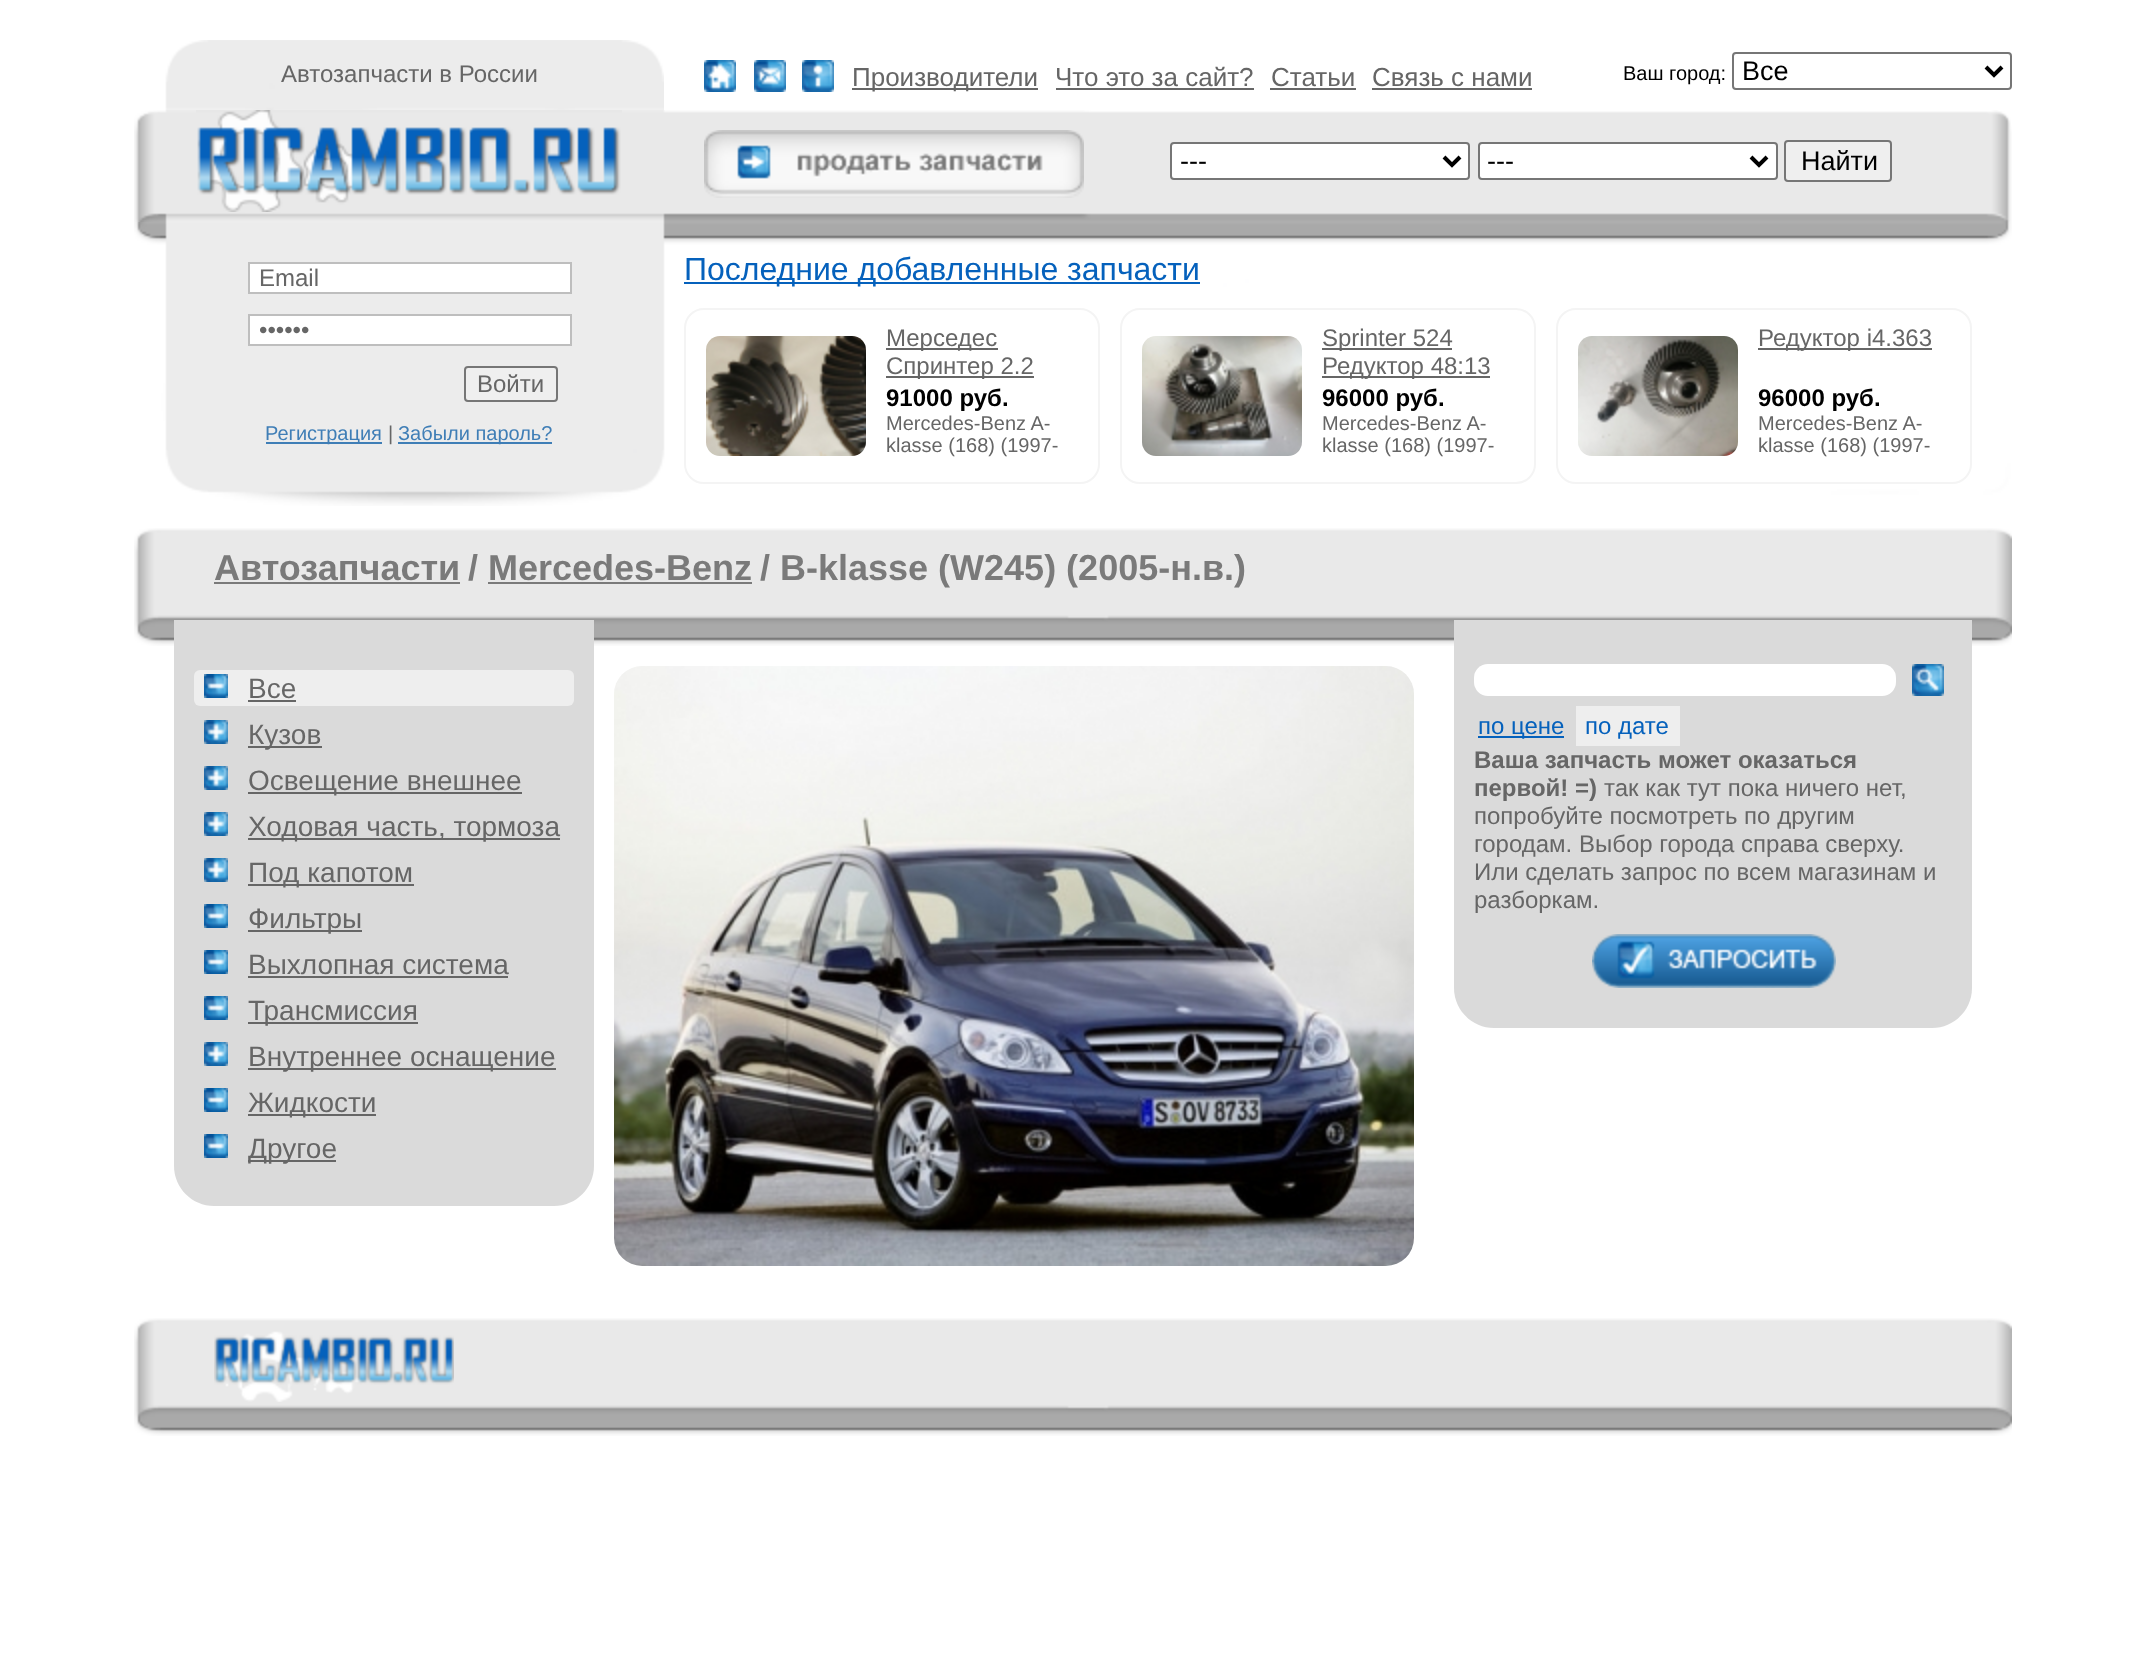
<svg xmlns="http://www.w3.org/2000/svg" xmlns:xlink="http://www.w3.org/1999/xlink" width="2145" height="1668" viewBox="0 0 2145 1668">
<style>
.cls-1{font:24px Liberation Sans;fill:#666666}
.cls-2{font:26px Liberation Sans;fill:#666666}
.cls-3{font:20px Liberation Sans;fill:#000000}
.cls-4{font:27px Liberation Sans;fill:#000000}
.cls-5{font:20px Liberation Sans;fill:#3f7eb6}
.cls-6{font:20px Liberation Sans;fill:#666666}
.cls-7{font:32px Liberation Sans;fill:#0561bc}
.cls-8{font:bold 24px Liberation Sans;fill:#000000}
.cls-9{font:bold 36px Liberation Sans;fill:#7a7a7a}
.cls-10{font:28px Liberation Sans;fill:#666666}
.cls-11{font:24px Liberation Sans;fill:#0561bc}
.cls-12{font:bold 24px Liberation Sans;fill:#666666}
</style>
<rect width="100%" height="100%" fill="#ffffff"/>
<image xlink:href="image0.png" x="165" y="40" width="499" height="70"/>
<image xlink:href="image1.png" x="704" y="60" width="32" height="32"/>
<image xlink:href="image2.png" x="754" y="60" width="32" height="32"/>
<image xlink:href="image3.png" x="802" y="60" width="32" height="32"/>
<rect fill="#666666" x="852" y="88" width="186" height="2"/>
<rect fill="#666666" x="1056" y="88" width="198" height="2"/>
<rect fill="#666666" x="1270" y="88" width="86" height="2"/>
<rect fill="#666666" x="1372" y="88" width="160" height="2"/>
<rect fill="none" stroke="#767676" stroke-width="2" x="1733" y="53" width="278" height="36" rx="3"/>
<path fill="none" stroke="#000000" stroke-width="4" d="M1986 67L1994 75L2002 67"/>
<image xlink:href="image4.png" x="134" y="110" width="1878" height="112"/>
<image xlink:href="image5.png" x="196" y="110" width="426" height="102"/>
<image xlink:href="image6.png" x="704" y="130" width="380" height="68"/>
<rect fill="#ffffff" stroke="#767676" stroke-width="2" x="1171" y="143" width="298" height="36" rx="3"/>
<path fill="none" stroke="#000000" stroke-width="4" d="M1444 157L1452 165L1460 157"/>
<rect fill="#ffffff" stroke="#767676" stroke-width="2" x="1479" y="143" width="298" height="36" rx="3"/>
<path fill="none" stroke="#000000" stroke-width="4" d="M1751 157L1759 165L1767 157"/>
<rect fill="#efefef" stroke="#767676" stroke-width="2" x="1785" y="141" width="106" height="40" rx="3"/>
<image xlink:href="image7.png" x="134" y="222" width="1878" height="284"/>
<rect fill="#ffffff" stroke="#bebebe" stroke-width="2" x="249" y="263" width="322" height="30"/>
<rect fill="#ffffff" stroke="#bebebe" stroke-width="2" x="249" y="315" width="322" height="30"/>
<rect fill="#efefef" stroke="#767676" stroke-width="2" x="465" y="367" width="92" height="34" rx="3"/>
<rect fill="#3f7eb6" x="266" y="442" width="116" height="2"/>
<rect fill="#3f7eb6" x="398" y="442" width="154" height="2"/>
<rect fill="#0561bc" x="684" y="282" width="516" height="2"/>
<rect fill="none" stroke="#f4f4f4" stroke-width="2" x="685" y="309" width="414" height="174" rx="19"/>
<image xlink:href="image8.png" x="706" y="336" width="160" height="120"/>
<rect fill="#666666" x="886" y="348" width="112" height="2"/>
<rect fill="#666666" x="886" y="376" width="148" height="2"/>
<rect fill="none" stroke="#f4f4f4" stroke-width="2" x="1121" y="309" width="414" height="174" rx="19"/>
<image xlink:href="image9.png" x="1142" y="336" width="160" height="120"/>
<rect fill="#666666" x="1322" y="348" width="130" height="2"/>
<rect fill="#666666" x="1322" y="376" width="168" height="2"/>
<rect fill="none" stroke="#f4f4f4" stroke-width="2" x="1557" y="309" width="414" height="174" rx="19"/>
<image xlink:href="image10.png" x="1578" y="336" width="160" height="120"/>
<rect fill="#666666" x="1758" y="348" width="174" height="2"/>
<image xlink:href="image11.png" x="134" y="528" width="1878" height="118"/>
<rect fill="#7a7a7a" x="214" y="582" width="246" height="2"/>
<rect fill="#7a7a7a" x="488" y="582" width="264" height="2"/>
<path fill="#dadada" d="M174 620H594V1166C594 1188 576 1206 554 1206H214C192 1206 174 1188 174 1166Z"/>
<rect fill="#eeeeee" x="194" y="670" width="380" height="36" rx="6"/>
<image xlink:href="image12.png" x="204" y="674" width="24" height="24"/>
<rect fill="#666666" x="248" y="700" width="48" height="2"/>
<image xlink:href="image13.png" x="204" y="720" width="24" height="24"/>
<rect fill="#666666" x="248" y="746" width="74" height="2"/>
<image xlink:href="image13.png" x="204" y="766" width="24" height="24"/>
<rect fill="#666666" x="248" y="792" width="274" height="2"/>
<image xlink:href="image13.png" x="204" y="812" width="24" height="24"/>
<rect fill="#666666" x="248" y="838" width="312" height="2"/>
<image xlink:href="image13.png" x="204" y="858" width="24" height="24"/>
<rect fill="#666666" x="248" y="884" width="166" height="2"/>
<image xlink:href="image12.png" x="204" y="904" width="24" height="24"/>
<rect fill="#666666" x="248" y="930" width="114" height="2"/>
<image xlink:href="image12.png" x="204" y="950" width="24" height="24"/>
<rect fill="#666666" x="248" y="976" width="260" height="2"/>
<image xlink:href="image12.png" x="204" y="996" width="24" height="24"/>
<rect fill="#666666" x="248" y="1022" width="170" height="2"/>
<image xlink:href="image13.png" x="204" y="1042" width="24" height="24"/>
<rect fill="#666666" x="248" y="1068" width="308" height="2"/>
<image xlink:href="image12.png" x="204" y="1088" width="24" height="24"/>
<rect fill="#666666" x="248" y="1114" width="128" height="2"/>
<image xlink:href="image12.png" x="204" y="1134" width="24" height="24"/>
<rect fill="#666666" x="248" y="1160" width="88" height="2"/>
<image xlink:href="image14.png" x="614" y="666" width="800" height="600"/>
<path fill="#dadada" d="M1454 620H1972V988C1972 1010 1954 1028 1932 1028H1494C1472 1028 1454 1010 1454 988Z"/>
<rect fill="#ffffff" x="1474" y="664" width="422" height="32" rx="14"/>
<image xlink:href="image15.png" x="1912" y="664" width="32" height="32"/>
<rect fill="#0561bc" x="1478" y="736" width="86" height="2"/>
<rect fill="#eeeeee" x="1576" y="706" width="104" height="40"/>
<image xlink:href="image16.png" x="1592" y="934" width="244" height="54"/>
<image xlink:href="image11.png" x="134" y="1318" width="1878" height="118"/>
<image xlink:href="image17.png" x="214" y="1331" width="240" height="71"/>
<text class="cls-1" x="281" y="82">Автозапчасти в России</text>
<text class="cls-2" x="852" y="86">Производители</text>
<text class="cls-2" x="1055" y="86">Что это за сайт?</text>
<text class="cls-2" x="1271" y="86">Статьи</text>
<text class="cls-2" x="1372" y="86">Связь с нами</text>
<text class="cls-3" x="1623" y="80">Ваш город:</text>
<text class="cls-4" x="1742" y="80">Все</text>
<text class="cls-4" x="1180" y="170">---</text>
<text class="cls-4" x="1487" y="170">---</text>
<text class="cls-4" x="1801" y="170">Найти</text>
<text class="cls-1" x="259" y="286">Email</text>
<text class="cls-1" x="259" y="338">••••••</text>
<text class="cls-1" x="477" y="392">Войти</text>
<text class="cls-5" x="265" y="440">Регистрация</text>
<text class="cls-6" x="388" y="440">|</text>
<text class="cls-5" x="398" y="440">Забыли пароль?</text>
<text class="cls-7" x="684" y="280">Последние добавленные запчасти</text>
<text class="cls-1"><tspan x="886" y="346">Мерседес</tspan><tspan x="886" y="374">Спринтер 2.2</tspan></text>
<text class="cls-8" x="886" y="406">91000 руб.</text>
<text class="cls-6"><tspan x="886" y="430">Mercedes-Benz A-</tspan><tspan x="886" y="452">klasse (168) (1997-</tspan></text>
<text class="cls-1"><tspan x="1322" y="346">Sprinter 524</tspan><tspan x="1322" y="374">Редуктор 48:13</tspan></text>
<text class="cls-8" x="1322" y="406">96000 руб.</text>
<text class="cls-6"><tspan x="1322" y="430">Mercedes-Benz A-</tspan><tspan x="1322" y="452">klasse (168) (1997-</tspan></text>
<text class="cls-1" x="1758" y="346">Редуктор i4.363</text>
<text class="cls-8" x="1758" y="406">96000 руб.</text>
<text class="cls-6"><tspan x="1758" y="430">Mercedes-Benz A-</tspan><tspan x="1758" y="452">klasse (168) (1997-</tspan></text>
<text class="cls-9" x="214" y="580">Автозапчасти</text>
<text class="cls-9" x="468" y="580">/ Mercedes-Benz</text>
<text class="cls-9" x="760" y="580">/ B-klasse (W245) (2005-н.в.)</text>
<text class="cls-10"><tspan x="248" y="698">Все</tspan><tspan x="248" y="744">Кузов</tspan><tspan x="248" y="790">Освещение внешнее</tspan><tspan x="248" y="836">Ходовая часть, тормоза</tspan><tspan x="248" y="882">Под капотом</tspan><tspan x="248" y="928">Фильтры</tspan><tspan x="248" y="974">Выхлопная система</tspan><tspan x="248" y="1020">Трансмиссия</tspan><tspan x="248" y="1066">Внутреннее оснащение</tspan><tspan x="248" y="1112">Жидкости</tspan><tspan x="248" y="1158">Другое</tspan></text>
<text class="cls-11" x="1478" y="734">по цене</text>
<text class="cls-11" x="1585" y="734">по дате</text>
<text class="cls-12"><tspan x="1474" y="768">Ваша запчасть может оказаться</tspan><tspan x="1474" y="796">первой! =)</tspan></text>
<text class="cls-1" x="1604" y="796">так как тут пока ничего нет,</text>
<text class="cls-1"><tspan x="1474" y="824">попробуйте посмотреть по другим</tspan><tspan x="1474" y="852">городам. Выбор города справа сверху.</tspan><tspan x="1474" y="880">Или сделать запрос по всем магазинам и</tspan><tspan x="1474" y="908">разборкам.</tspan></text>
</svg>
